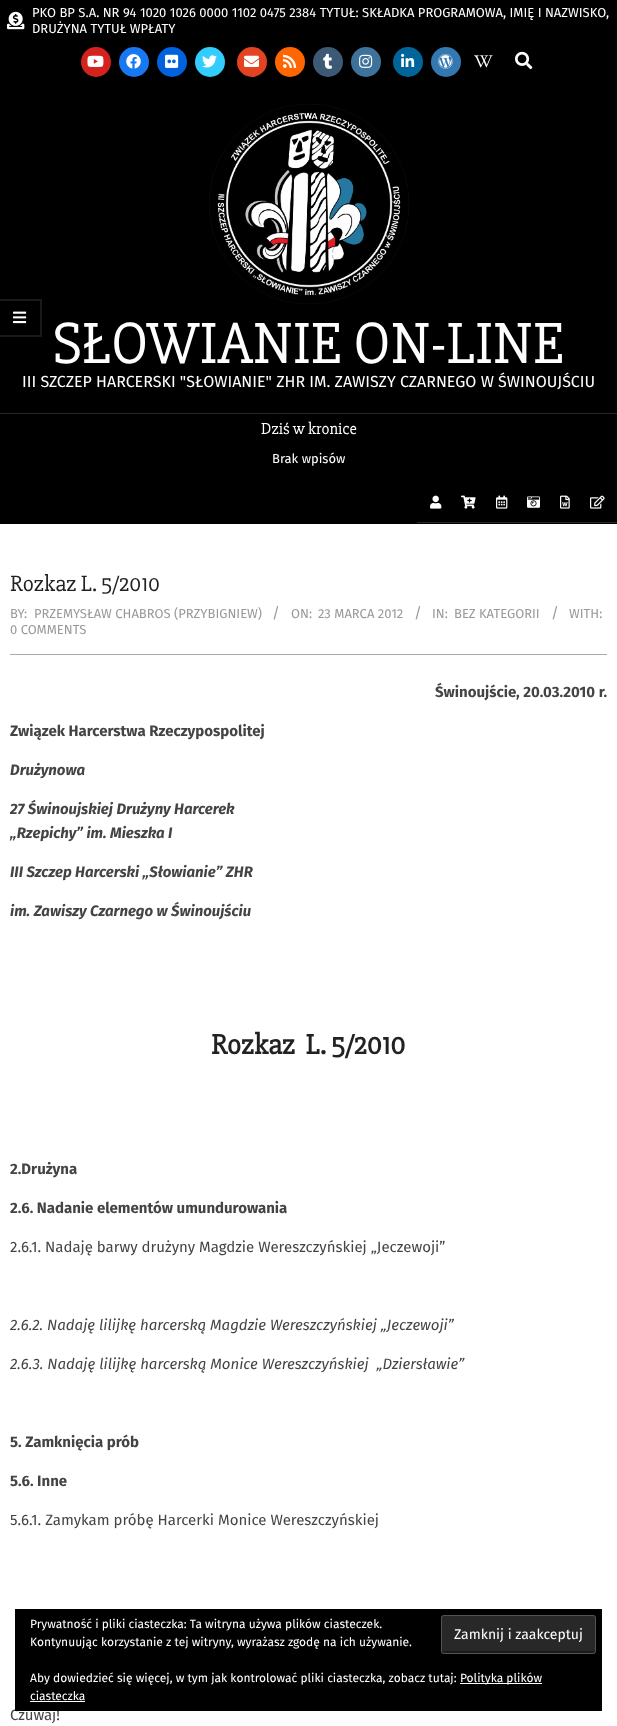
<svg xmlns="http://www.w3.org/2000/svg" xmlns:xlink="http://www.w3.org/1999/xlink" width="617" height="1726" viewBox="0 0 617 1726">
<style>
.cls-1{font:13px Fira Sans;fill:#ffffff}
.cls-2{font:60px 'Slabo 27px';fill:#ffffff}
.cls-3{font:16px Fira Sans;fill:#ffffff}
.cls-4{font:16.5px 'Slabo 27px';fill:#ffffff}
.cls-5{font:23px 'Slabo 27px';fill:#222222}
.cls-6{font:13px Fira Sans;fill:#999999}
.cls-7{font:15px Fira Sans;fill:#999999}
.cls-8{font:bold 15px Fira Sans;fill:#444444}
.cls-9{font:italic bold 15px Fira Sans;fill:#444444}
.cls-10{font:bold 29px 'Slabo 27px';fill:#222222}
.cls-11{font:15px Fira Sans;fill:#444444}
.cls-12{font:italic 15px Fira Sans;fill:#444444}
.cls-13{font:12px Fira Sans;fill:#ffffff}
.cls-14{font:14px Fira Sans;fill:#ffffff}
</style>
<rect width="100%" height="100%" fill="#000000"/>
<image xlink:href="image0.png" x="7" y="11" width="18" height="19"/>
<circle fill="#d4231e" cx="96" cy="62" r="15"/>
<image xlink:href="image1.png" x="87" y="55" width="17" height="12"/>
<circle fill="#1877f2" cx="134" cy="62" r="15"/>
<image xlink:href="image2.png" x="126" y="54" width="15" height="15"/>
<circle fill="#0062dd" cx="172" cy="62" r="15"/>
<image xlink:href="image3.png" x="165" y="54" width="14" height="14"/>
<circle fill="#32ccfe" cx="210" cy="62" r="15"/>
<image xlink:href="image4.png" x="202" y="55" width="15" height="13"/>
<circle fill="#e44321" cx="252" cy="62" r="15"/>
<image xlink:href="image5.png" x="244" y="55" width="15" height="12"/>
<circle fill="#ff6501" cx="290" cy="62" r="15"/>
<image xlink:href="image6.png" x="283" y="54" width="14" height="14"/>
<circle fill="#3e5976" cx="328" cy="62" r="15"/>
<image xlink:href="image7.png" x="323" y="53" width="10" height="16"/>
<circle fill="#3f729b" cx="366" cy="62" r="15"/>
<image xlink:href="image8.png" x="359" y="54" width="14" height="14"/>
<circle fill="#00659b" cx="408" cy="62" r="15"/>
<image xlink:href="image9.png" x="401" y="53" width="14" height="14"/>
<circle fill="#3378b0" cx="446" cy="62" r="15"/>
<image xlink:href="image10.png" x="438" y="54" width="15" height="15"/>
<image xlink:href="image11.png" x="474" y="55" width="19" height="13"/>
<image xlink:href="image12.png" x="515" y="51" width="18" height="19"/>
<path fill="#1a1a1a" d="M0 299H42L40 301H0Z"/>
<path fill="#ffffff" fill-opacity="0.1" d="M42 299V337L40 335V301Z"/>
<path fill="#ffffff" fill-opacity="0.1" d="M42 337H0V335H40Z"/>
<image xlink:href="image13.png" x="13" y="311" width="14" height="13"/>
<rect fill="#282828" x="417" y="522" width="200" height="1"/>
<image xlink:href="image14.png" x="430" y="495" width="12" height="14"/>
<image xlink:href="image15.png" x="461" y="495" width="15" height="14"/>
<image xlink:href="image16.png" x="496" y="495" width="12" height="14"/>
<image xlink:href="image17.png" x="527" y="496" width="13" height="12"/>
<image xlink:href="image18.png" x="560" y="495" width="10" height="14"/>
<image xlink:href="image19.png" x="590" y="495" width="15" height="14"/>
<image xlink:href="image20.png" x="209" y="104" width="200" height="200"/>
<rect fill="#282828" x="0" y="413" width="617" height="1"/>
<rect fill="#ffffff" x="0" y="524" width="617" height="1202"/>
<rect fill="#aaaaaa" x="10" y="654" width="597" height="1"/>
<text class="cls-1"><tspan x="32" y="17">PKO BP S.A. NR 94 1020 1026 0000 1102 0475 2384 TYTUŁ: SKŁADKA PROGRAMOWA, IMIĘ I NAZWISKO,</tspan><tspan x="32" y="33">DRUŻYNA TYTUŁ WPŁATY</tspan></text>
<text class="cls-2" x="53" y="363">SŁOWIANIE ON-LINE</text>
<text class="cls-3" x="22" y="387">III SZCZEP HARCERSKI "SŁOWIANIE" ZHR IM. ZAWISZY CZARNEGO W ŚWINOUJŚCIU</text>
<text class="cls-4" x="261" y="434">Dziś w kronice</text>
<text class="cls-1" x="272" y="463">Brak wpisów</text>
<text class="cls-5" x="10" y="591">Rozkaz L. 5/2010</text>
<text class="cls-6" x="10" y="618">BY:</text>
<text class="cls-6" x="34" y="618">PRZEMYSŁAW CHABROS (PRZYBIGNIEW)</text>
<text class="cls-7" x="272" y="618">/</text>
<text class="cls-6" x="291" y="618">ON:</text>
<text class="cls-6" x="318" y="618">23 MARCA 2012</text>
<text class="cls-7" x="414" y="618">/</text>
<text class="cls-6" x="432" y="618">IN:</text>
<text class="cls-6" x="454" y="618">BEZ KATEGORII</text>
<text class="cls-7" x="551" y="618">/</text>
<text class="cls-6" x="569" y="618">WITH:</text>
<text class="cls-6" x="10" y="634">0 COMMENTS</text>
<text class="cls-8" x="435" y="697">Świnoujście, 20.03.2010 r.</text>
<text class="cls-8" x="10" y="736">Związek Harcerstwa Rzeczypospolitej</text>
<text class="cls-9" x="10" y="775">Drużynowa</text>
<text class="cls-9"><tspan x="10" y="814">27 Świnoujskiej Drużyny Harcerek</tspan><tspan x="10" y="838">„Rzepichy” im. Mieszka I</tspan></text>
<text class="cls-9" x="10" y="877">III Szczep Harcerski „Słowianie” ZHR</text>
<text class="cls-9" x="10" y="916">im. Zawiszy Czarnego w Świnoujściu</text>
<text class="cls-10" xml:space="preserve" x="211" y="1054">Rozkaz  L. 5/2010</text>
<text class="cls-8" x="10" y="1174">2.Drużyna</text>
<text class="cls-8" x="10" y="1213">2.6. Nadanie elementów umundurowania</text>
<text class="cls-11" x="10" y="1252">2.6.1. Nadaję barwy drużyny Magdzie Wereszczyńskiej „Jeczewoji”</text>
<text class="cls-12" x="10" y="1330">2.6.2. Nadaję lilijkę harcerską Magdzie Wereszczyńskiej „Jeczewoji”</text>
<text class="cls-12" xml:space="preserve" x="10" y="1369">2.6.3. Nadaję lilijkę harcerską Monice Wereszczyńskiej  „Dziersławie”</text>
<text class="cls-8" x="10" y="1447">5. Zamknięcia prób</text>
<text class="cls-8" x="10" y="1486">5.6. Inne</text>
<text class="cls-11" x="10" y="1525">5.6.1. Zamykam próbę Harcerki Monice Wereszczyńskiej</text>
<text class="cls-11" x="10" y="1720">Czuwaj!</text>
<rect fill="#000000" x="15" y="1609" width="587" height="102"/>
<text class="cls-13"><tspan x="30" y="1628">Prywatność i pliki ciasteczka: Ta witryna używa plików ciasteczek.</tspan><tspan x="30" y="1646">Kontynuując korzystanie z tej witryny, wyrażasz zgodę na ich używanie.</tspan></text>
<rect fill="#282828" x="441" y="1615" width="155" height="39" rx="3"/>
<path fill="#1b1b1b" d="M442 1649C442 1651 442 1653 444 1653H594C595 1652 595 1650 595 1649C595 1650 594 1651 593 1651H444C443 1651 442 1650 442 1649Z"/>
<rect fill="none" stroke="#535353" x="441.5" y="1615.5" width="154" height="38" rx="2.5"/>
<text class="cls-14" x="454" y="1639">Zamknij i zaakceptuj</text>
<text class="cls-13" x="30" y="1682">Aby dowiedzieć się więcej, w tym jak kontrolować pliki ciasteczka, zobacz tutaj:</text>
<rect fill="#ffffff" x="460" y="1683" width="82" height="1"/>
<text class="cls-13" x="460" y="1682">Polityka plików</text>
<text class="cls-13" x="30" y="1700">ciasteczka</text>
<rect fill="#ffffff" x="30" y="1701" width="55" height="1"/>
</svg>
